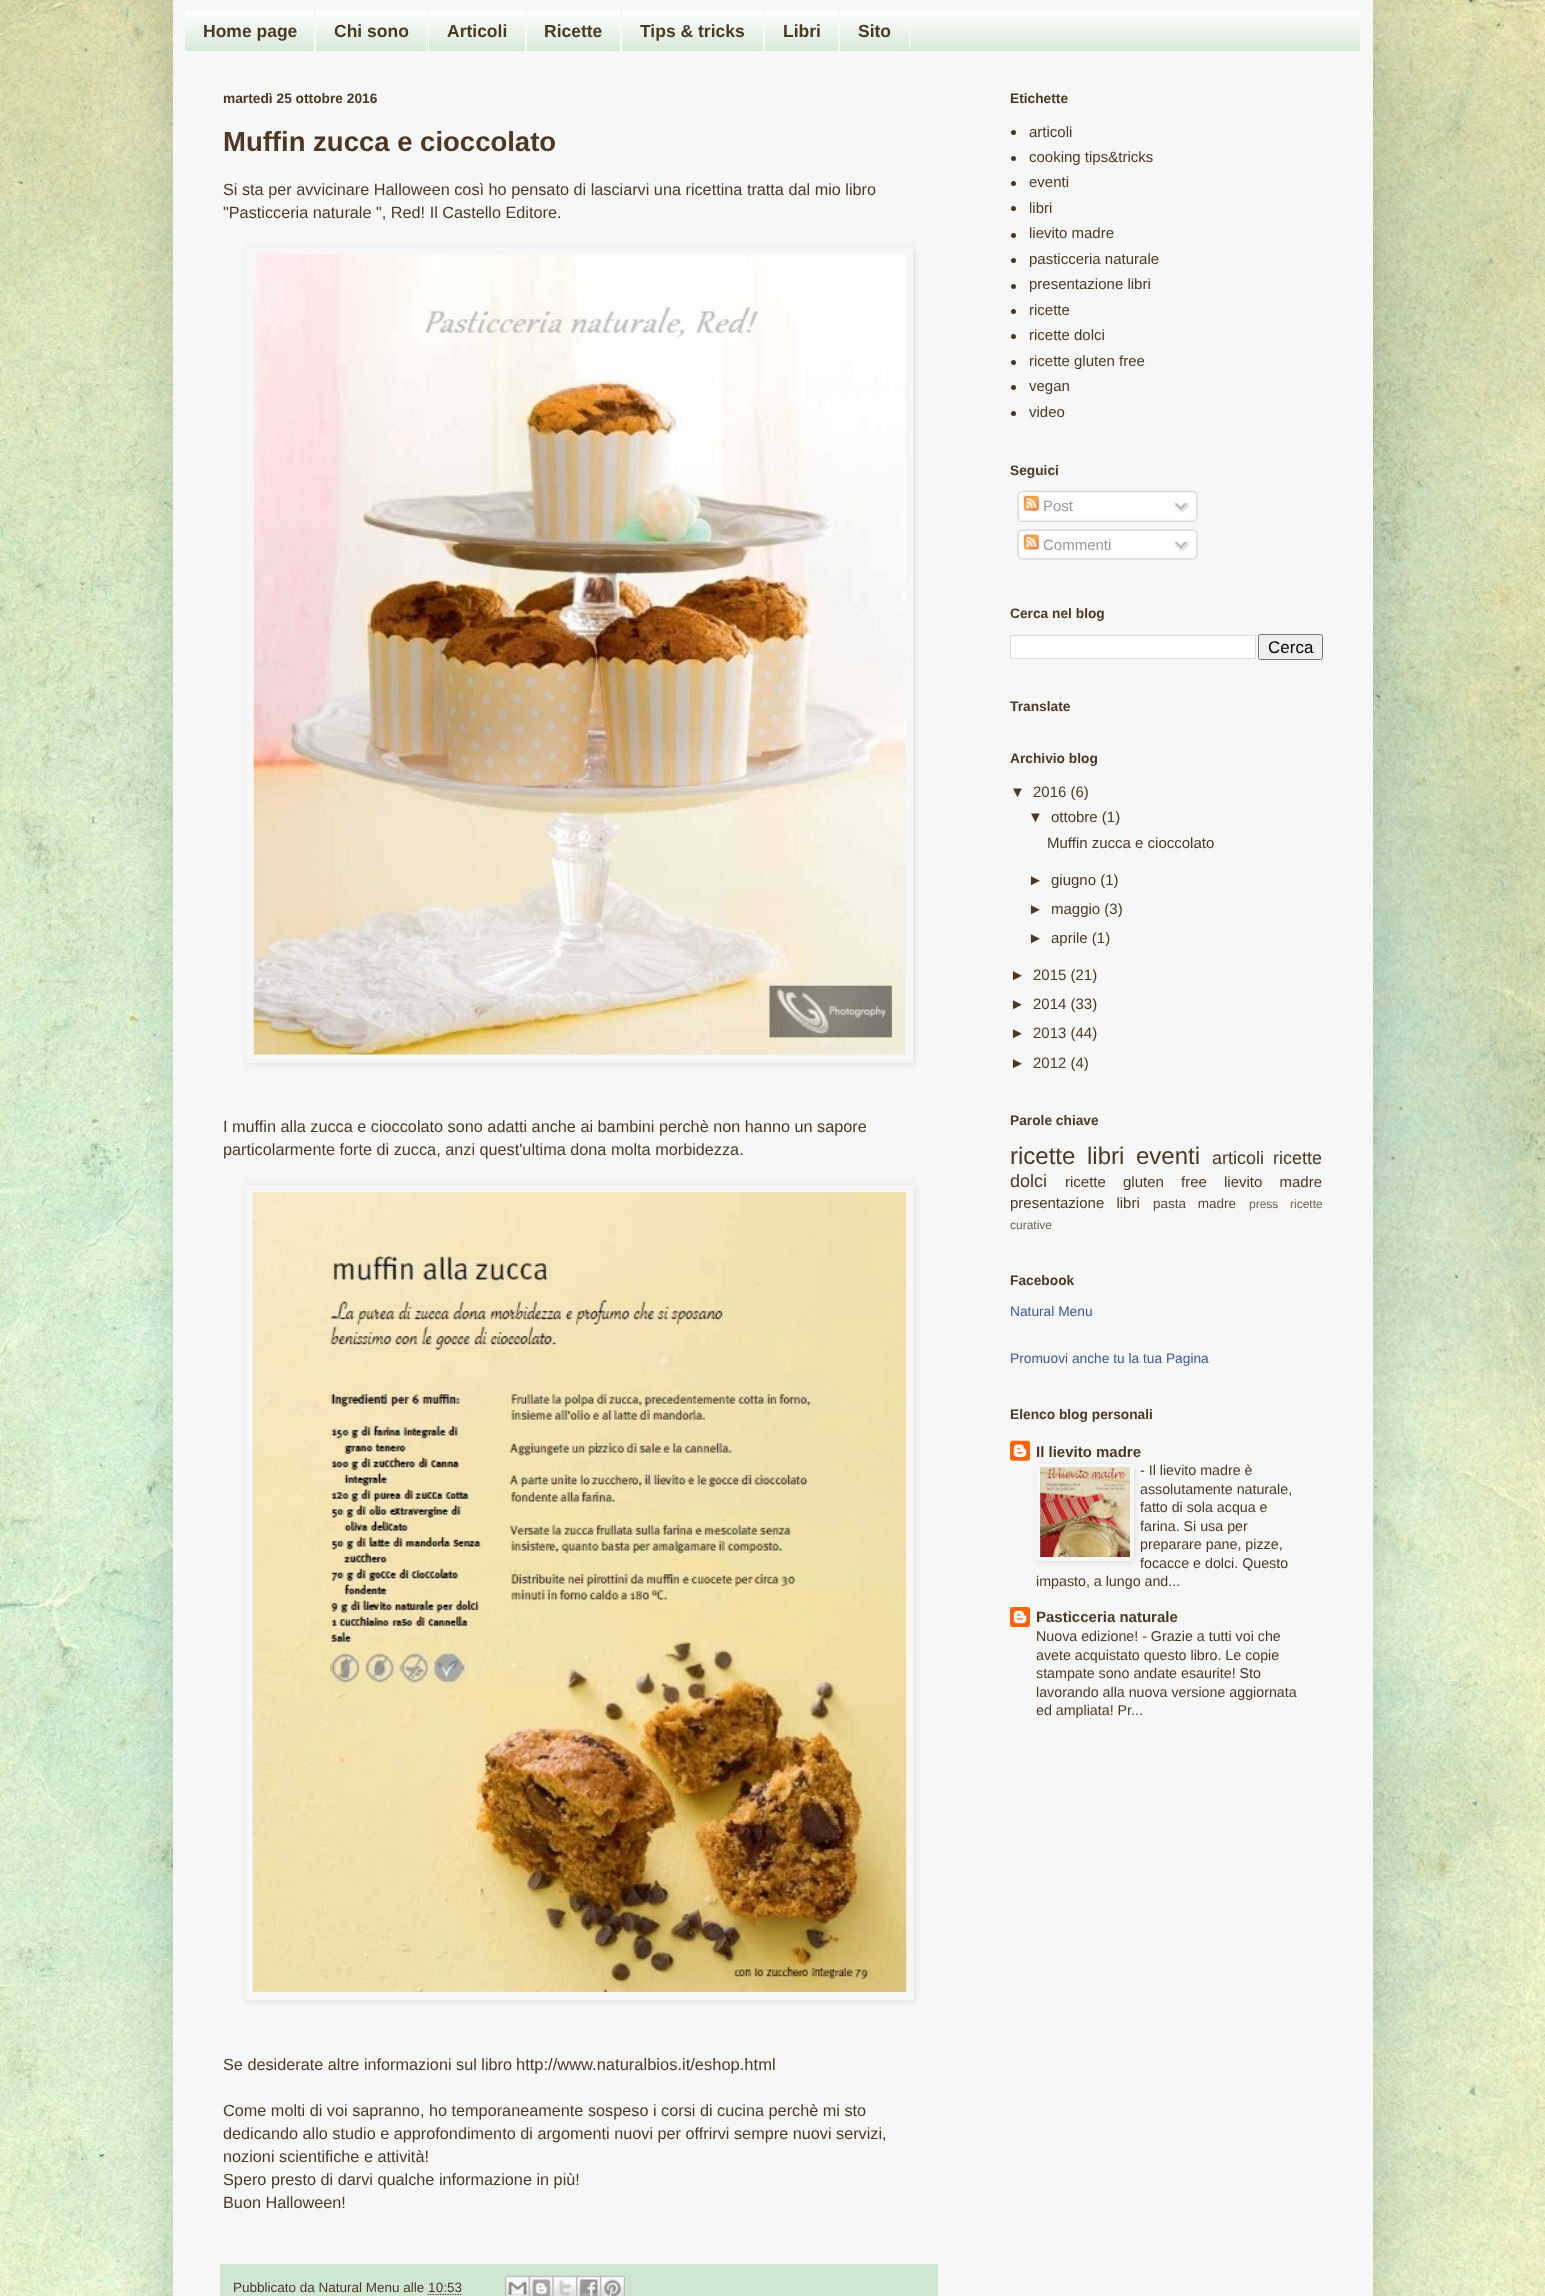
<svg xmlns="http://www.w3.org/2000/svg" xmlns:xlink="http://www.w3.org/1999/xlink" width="1545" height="2296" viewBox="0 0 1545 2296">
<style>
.cls-1{font:bold 17.5px Liberation Sans;fill:#4f3822}
.cls-2{font:bold 13.75px Liberation Sans;fill:#4f3822}
.cls-3{font:bold 27.5px Liberation Sans;fill:#4f3822}
.cls-4{font:16.25px Liberation Sans;fill:#4f3822}
.cls-5{font:16.5px Liberation Sans;fill:#4f3822}
.cls-6{font:13.5px Liberation Sans;fill:#4f3822}
.cls-7{font:15px Liberation Sans;fill:#4f3822}
.cls-8{font:15px Liberation Sans;fill:#999999}
.cls-9{font:17px Liberation Sans;fill:#000000}
.cls-10{font:24px Liberation Sans;fill:#4f3822}
.cls-11{font:18px Liberation Sans;fill:#4f3822}
.cls-12{font:13.5px Liberation Sans;fill:#604b37}
.cls-13{font:12px Liberation Sans;fill:#715e4d}
.cls-14{font:13.75px Liberation Sans;fill:#3b5998}
.cls-15{font:bold 15px Liberation Sans;fill:#4f3822}
.cls-16{font:14.25px Liberation Sans;fill:#4f3822}
</style>
<rect width="100%" height="100%" fill="#ffffff"/>
<image xlink:href="image0.png" x="0" y="0" width="1545" height="2296"/>
<rect fill="#000000" fill-opacity="0.15" filter="blur(25px)" x="173" y="-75" width="1200" height="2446"/>
<rect fill="#f7f7f7" x="173" y="0" width="1200" height="2296"/>
<rect fill="#cfe7d1" x="185" y="11" width="1175" height="40"/>
<image xlink:href="image1.png" x="185" y="10" width="1175" height="41"/>
<rect fill="#f7f7f7" x="314" y="10" width="2" height="41"/>
<rect fill="#f7f7f7" x="426" y="10" width="1" height="41"/>
<rect fill="#f7f7f7" x="525" y="10" width="2" height="41"/>
<rect fill="#f7f7f7" x="428" y="10" width="1" height="41"/>
<rect fill="#f7f7f7" x="620" y="10" width="2" height="41"/>
<rect fill="#f7f7f7" x="763" y="10" width="2" height="41"/>
<rect fill="#f7f7f7" x="838" y="10" width="2" height="41"/>
<rect fill="#f7f7f7" x="909" y="10" width="1" height="41"/>
<rect fill="#000000" fill-opacity="0.1" filter="blur(3px)" x="248" y="249" width="666" height="815"/>
<rect fill="#f7f7f7" x="246" y="248" width="667" height="815"/>
<image xlink:href="image2.png" x="253" y="254" width="652" height="801"/>
<rect fill="#000000" fill-opacity="0.1" filter="blur(3px)" x="246" y="1186" width="669" height="815"/>
<rect fill="#f7f7f7" x="245" y="1185" width="669" height="815"/>
<image xlink:href="image3.png" x="252" y="1192" width="655" height="800"/>
<rect fill="#cfe7d1" x="220" y="2264" width="718" height="32"/>
<image xlink:href="image4.png" x="505" y="2275" width="25" height="21"/>
<image xlink:href="image5.png" x="528" y="2275" width="26" height="21"/>
<image xlink:href="image6.png" x="552" y="2275" width="26" height="21"/>
<image xlink:href="image7.png" x="576" y="2275" width="26" height="21"/>
<image xlink:href="image8.png" x="600" y="2275" width="25" height="21"/>
<path fill="none" stroke="#4f3822" stroke-width="1.2" stroke-dasharray="1.25 1.25" d="M427.5 2294.5H461.5"/>
<circle fill="#4f3822" cx="1013.5" cy="132.5" r="2.5"/>
<circle fill="#4f3822" cx="1013.5" cy="158.5" r="2.5"/>
<circle fill="#4f3822" cx="1013.5" cy="183.5" r="2.5"/>
<circle fill="#4f3822" cx="1013.5" cy="208.5" r="2.5"/>
<circle fill="#4f3822" cx="1013.5" cy="235.5" r="2.5"/>
<circle fill="#4f3822" cx="1013.5" cy="260.5" r="2.5"/>
<circle fill="#4f3822" cx="1013.5" cy="286.5" r="2.5"/>
<circle fill="#4f3822" cx="1013.5" cy="311.5" r="2.5"/>
<circle fill="#4f3822" cx="1013.5" cy="336.5" r="2.5"/>
<circle fill="#4f3822" cx="1013.5" cy="362.5" r="2.5"/>
<circle fill="#4f3822" cx="1013.5" cy="387.5" r="2.5"/>
<circle fill="#4f3822" cx="1013.5" cy="413.5" r="2.5"/>
<image xlink:href="image9.png" x="1017" y="490" width="181" height="29"/>
<image xlink:href="image10.png" x="1023" y="495" width="16" height="16"/>
<image xlink:href="image11.png" x="1174" y="502" width="16" height="11"/>
<image xlink:href="image12.png" x="1017" y="518" width="181" height="4"/>
<image xlink:href="image13.png" x="1017" y="529" width="181" height="27"/>
<image xlink:href="image14.png" x="1023" y="534" width="16" height="16"/>
<image xlink:href="image15.png" x="1174" y="541" width="16" height="11"/>
<image xlink:href="image16.png" x="1017" y="556" width="181" height="4"/>
<rect fill="#ffffff" stroke="#dddddd" x="1010.5" y="635.5" width="245" height="23"/>
<rect fill="#efefef" stroke="#767676" x="1258.5" y="634.5" width="64" height="25" rx="2"/>
<image xlink:href="image17.png" x="1010" y="1440" width="20" height="21"/>
<rect fill="#000000" fill-opacity="0.1" filter="blur(3px)" x="1038" y="1465" width="97" height="98"/>
<rect fill="#f7f7f7" x="1036" y="1464" width="98" height="97"/>
<image xlink:href="image18.png" x="1040" y="1467" width="90" height="90"/>
<image xlink:href="image19.png" x="1010" y="1607" width="20" height="20"/>
<text class="cls-1" x="203" y="37">Home page</text>
<text class="cls-1" x="334" y="37">Chi sono</text>
<text class="cls-1" x="447" y="37">Articoli</text>
<text class="cls-1" x="544" y="37">Ricette</text>
<text class="cls-1" x="640" y="37">Tips &amp; tricks</text>
<text class="cls-1" x="783" y="37">Libri</text>
<text class="cls-1" x="858" y="37">Sito</text>
<text class="cls-2" x="223" y="103">martedì 25 ottobre 2016</text>
<text class="cls-3" x="223" y="151">Muffin zucca e cioccolato</text>
<text class="cls-4"><tspan x="223" y="195">Si sta per avvicinare Halloween così ho pensato di lasciarvi una ricettina tratta dal mio libro</tspan><tspan x="223" y="218">"Pasticceria naturale ", Red! Il Castello Editore.</tspan></text>
<text class="cls-4"><tspan x="223" y="1132">I muffin alla zucca e cioccolato sono adatti anche ai bambini perchè non hanno un sapore</tspan><tspan x="223" y="1155">particolarmente forte di zucca, anzi quest'ultima dona molta morbidezza.</tspan></text>
<text class="cls-4" x="223" y="2070">Se desiderate altre informazioni sul libro</text>
<text class="cls-5" x="516" y="2070">http://www.naturalbios.it/eshop.html</text>
<text class="cls-4"><tspan x="223" y="2116">Come molti di voi sapranno, ho temporaneamente sospeso i corsi di cucina perchè mi sto</tspan><tspan x="223" y="2139">dedicando allo studio e approfondimento di argomenti nuovi per offrirvi sempre nuovi servizi,</tspan><tspan x="223" y="2162">nozioni scientifiche e attività!</tspan><tspan x="223" y="2185">Spero presto di darvi qualche informazione in più!</tspan><tspan x="223" y="2208">Buon Halloween!</tspan></text>
<text class="cls-6" x="233" y="2292">Pubblicato da Natural Menu alle 10:53</text>
<text class="cls-2" x="1010" y="103">Etichette</text>
<text class="cls-7"><tspan x="1029" y="137">articoli</tspan><tspan x="1029" y="162">cooking tips&amp;tricks</tspan><tspan x="1029" y="187">eventi</tspan><tspan x="1029" y="213">libri</tspan><tspan x="1029" y="238">lievito madre</tspan><tspan x="1029" y="264">pasticceria naturale</tspan><tspan x="1029" y="289">presentazione libri</tspan><tspan x="1029" y="315">ricette</tspan><tspan x="1029" y="340">ricette dolci</tspan><tspan x="1029" y="366">ricette gluten free</tspan><tspan x="1029" y="391">vegan</tspan><tspan x="1029" y="417">video</tspan></text>
<text class="cls-2" x="1010" y="475">Seguici</text>
<text class="cls-8" x="1043" y="511">Post</text>
<text class="cls-8" x="1043" y="550">Commenti</text>
<text class="cls-2" x="1010" y="618">Cerca nel blog</text>
<text class="cls-9" x="1268" y="653">Cerca</text>
<text class="cls-2" x="1010" y="711">Translate</text>
<text class="cls-2" x="1010" y="763">Archivio blog</text>
<text class="cls-7" x="1010" y="797">▼</text>
<text class="cls-7" x="1033" y="797">2016 (6)</text>
<text class="cls-7" x="1028" y="822">▼</text>
<text class="cls-7" x="1051" y="822">ottobre (1)</text>
<text class="cls-7" x="1047" y="848">Muffin zucca e cioccolato</text>
<text class="cls-7" x="1028" y="885">►</text>
<text class="cls-7" x="1051" y="885">giugno (1)</text>
<text class="cls-7" x="1028" y="914">►</text>
<text class="cls-7" x="1051" y="914">maggio (3)</text>
<text class="cls-7" x="1028" y="943">►</text>
<text class="cls-7" x="1051" y="943">aprile (1)</text>
<text class="cls-7" x="1010" y="980">►</text>
<text class="cls-7" x="1033" y="980">2015 (21)</text>
<text class="cls-7" x="1010" y="1009">►</text>
<text class="cls-7" x="1033" y="1009">2014 (33)</text>
<text class="cls-7" x="1010" y="1038">►</text>
<text class="cls-7" x="1033" y="1038">2013 (44)</text>
<text class="cls-7" x="1010" y="1068">►</text>
<text class="cls-7" x="1033" y="1068">2012 (4)</text>
<text class="cls-2" x="1010" y="1125">Parole chiave</text>
<text class="cls-10" x="1010" y="1164">ricette</text>
<text class="cls-10" x="1087" y="1164">libri</text>
<text class="cls-10" x="1136" y="1164">eventi</text>
<text class="cls-11" x="1212" y="1164">articoli</text>
<text class="cls-11" x="1273" y="1164">ricette</text>
<text class="cls-11" x="1010" y="1187">dolci</text>
<text class="cls-7" x="1065" y="1187" word-spacing="13">ricette gluten free</text>
<text class="cls-7" x="1224" y="1187" word-spacing="13">lievito madre</text>
<text class="cls-7" x="1010" y="1208" word-spacing="8">presentazione libri</text>
<text class="cls-12" x="1153" y="1208" word-spacing="8">pasta madre</text>
<text class="cls-13" x="1249" y="1208">press</text>
<text class="cls-13" x="1290" y="1208">ricette</text>
<text class="cls-13" x="1010" y="1229">curative</text>
<text class="cls-2" x="1010" y="1285">Facebook</text>
<text class="cls-14" x="1010" y="1316">Natural Menu</text>
<text class="cls-14" x="1010" y="1363">Promuovi anche tu la tua Pagina</text>
<text class="cls-2" x="1010" y="1419">Elenco blog personali</text>
<text class="cls-15" x="1036" y="1457">Il lievito madre</text>
<text class="cls-16"><tspan x="1140" y="1475">- Il lievito madre è</tspan><tspan x="1140" y="1494">assolutamente naturale,</tspan><tspan x="1140" y="1512">fatto di sola acqua e</tspan><tspan x="1140" y="1531">farina. Si usa per</tspan><tspan x="1140" y="1549">preparare pane, pizze,</tspan><tspan x="1140" y="1568">focacce e dolci. Questo</tspan></text>
<text class="cls-16" x="1036" y="1586">impasto, a lungo and...</text>
<text class="cls-15" x="1036" y="1622">Pasticceria naturale</text>
<text class="cls-16"><tspan x="1036" y="1641">Nuova edizione! - Grazie a tutti voi che</tspan><tspan x="1036" y="1660">avete acquistato questo libro. Le copie</tspan><tspan x="1036" y="1678">stampate sono andate esaurite! Sto</tspan><tspan x="1036" y="1697">lavorando alla nuova versione aggiornata</tspan><tspan x="1036" y="1715">ed ampliata! Pr...</tspan></text>
</svg>
